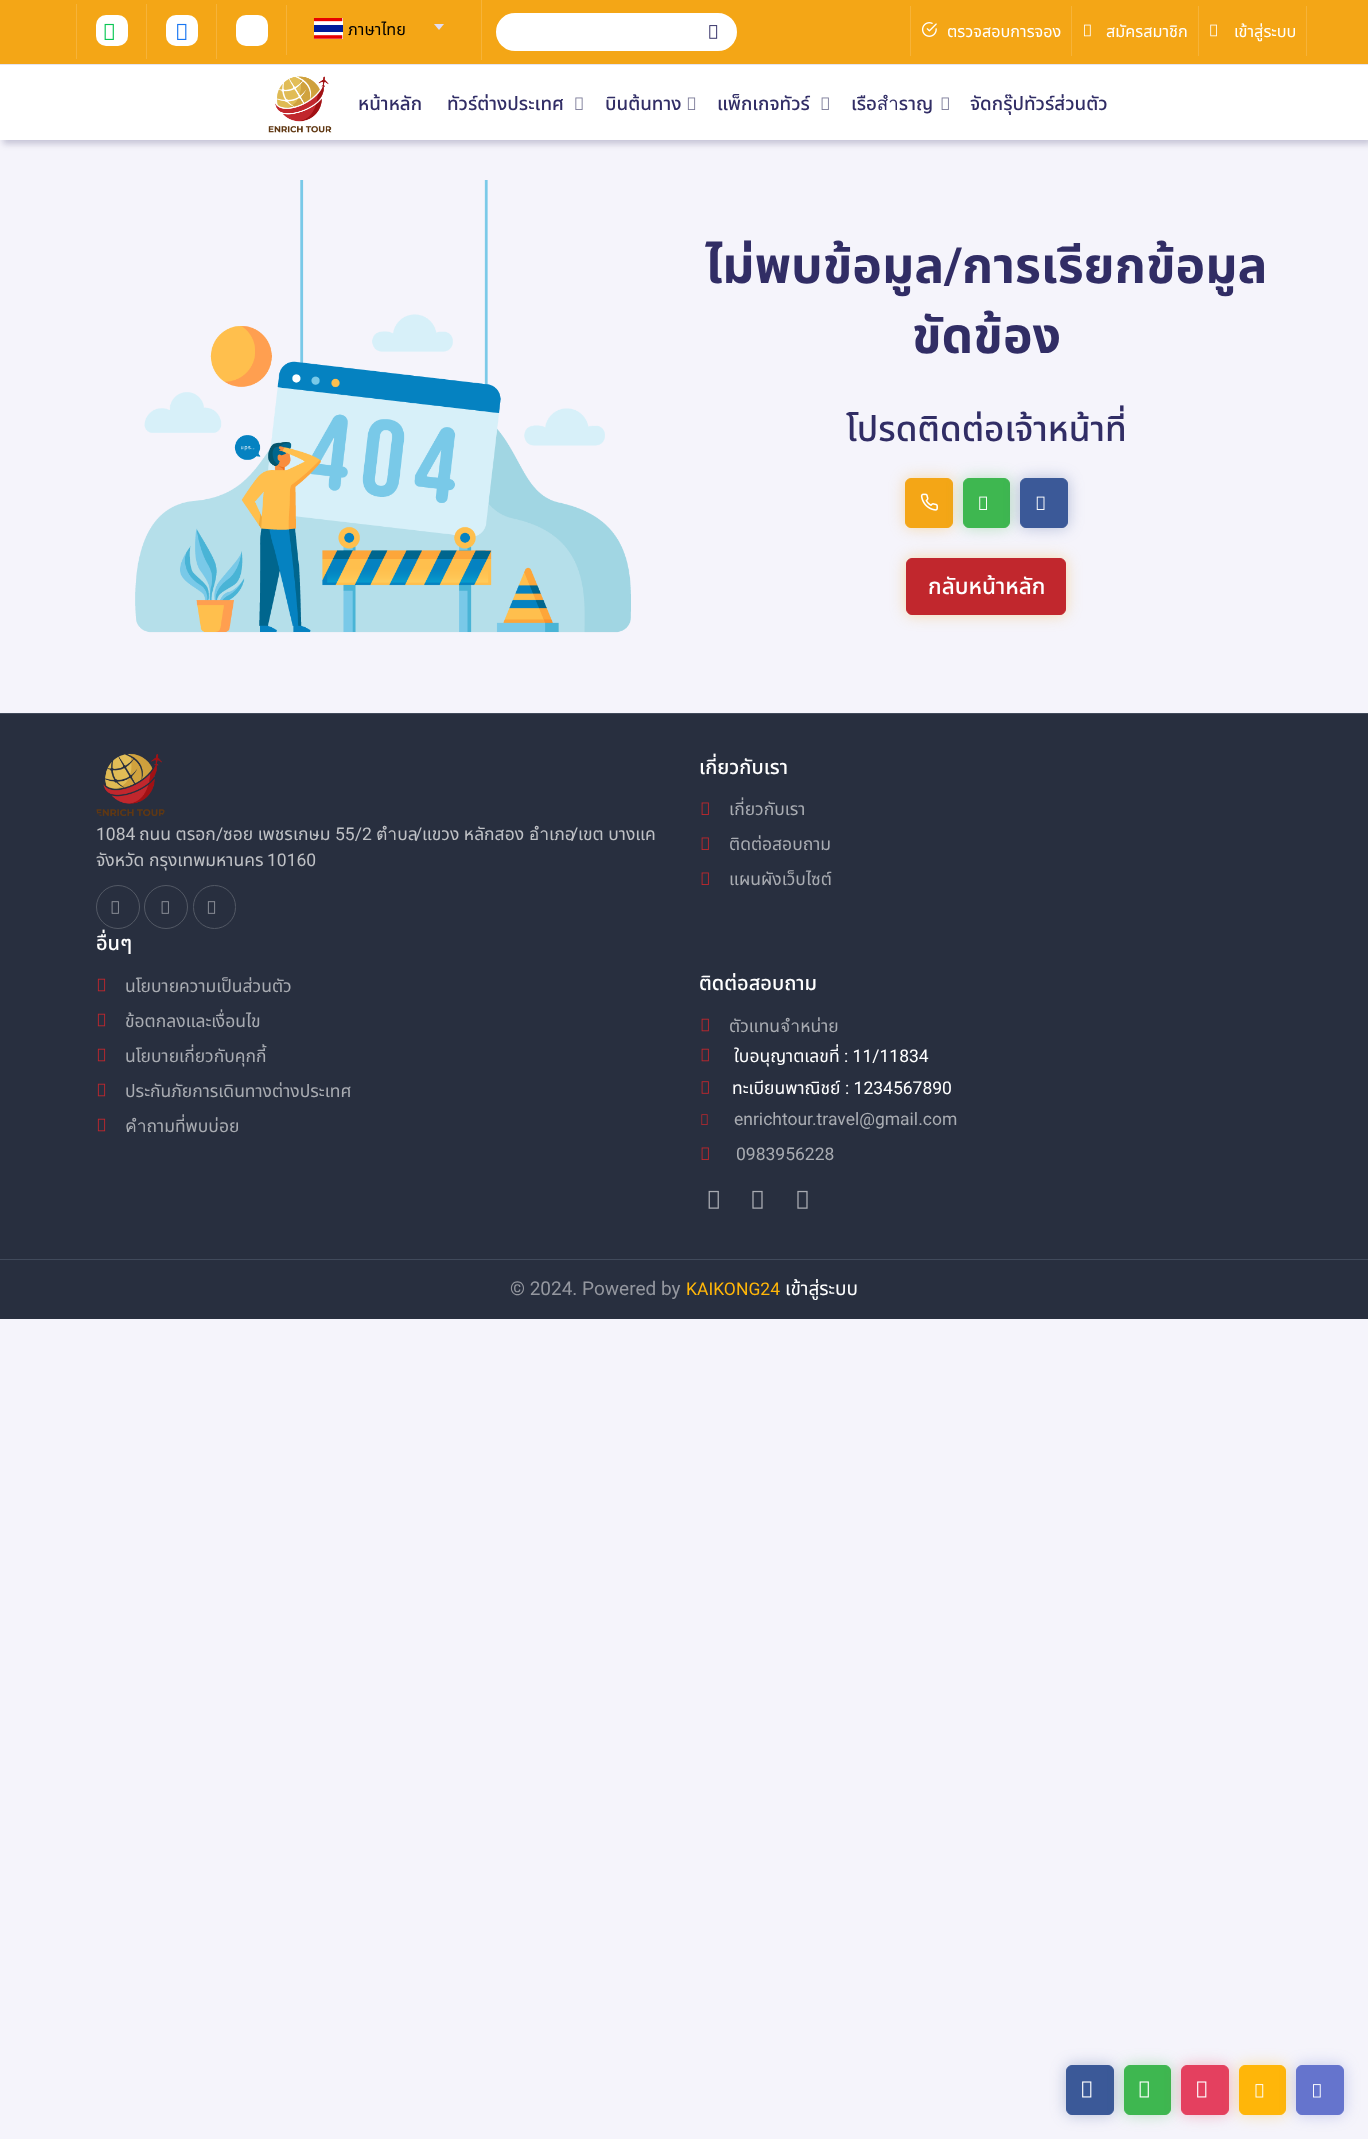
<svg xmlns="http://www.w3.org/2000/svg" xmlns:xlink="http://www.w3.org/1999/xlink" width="1368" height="2139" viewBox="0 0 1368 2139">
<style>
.cls-1{font:16.25px Noto Sans Thai;fill:#000000}
.cls-2{font:16.25px Noto Sans Thai;fill:#ffffff}
.cls-3{font:500 18.75px Noto Sans Thai;fill:#312d65}
.cls-4{font:bold 50px Noto Sans Thai;fill:#312d65}
.cls-5{font:bold 50px Roboto;fill:#312d65}
.cls-6{font:500 35px Noto Sans Thai;fill:#312d65}
.cls-7{font:500 22.5px Noto Sans Thai;fill:#ffffff}
.cls-8{font:17.5px Roboto;fill:#bfc1c5}
.cls-9{font:17.5px Noto Sans Thai;fill:#bfc1c5}
.cls-10{font:500 20px Noto Sans Thai;fill:#ffffff}
.cls-11{font:17.5px Noto Sans Thai;fill:#a9acb2}
.cls-12{font:17.5px Noto Sans Thai;fill:#ffffff}
.cls-13{font:17.5px Roboto;fill:#ffffff}
.cls-14{font:17.5px Roboto;fill:#a9acb2}
.cls-15{font:19px Roboto;fill:#94979f}
.cls-16{font:17.5px Roboto;fill:#ffb609}
.cls-17{font:19px Noto Sans Thai;fill:#ffffff}
</style>
<rect width="100%" height="100%" fill="#f5f4fb"/>
<rect fill="#312d65" fill-opacity="0.24" filter="blur(3px)" x="3" y="69" width="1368" height="75"/>
<rect fill="#f4a616" x="0" y="0" width="1368" height="64"/>
<rect fill="#e5e4f0" x="0" y="64" width="1368" height="1"/>
<rect fill="#f6b339" x="76" y="4" width="1" height="55"/>
<rect fill="#ffffff" x="96" y="15" width="32" height="31" rx="10"/>
<image xlink:href="image0.png" x="104" y="23" width="10" height="17"/>
<rect fill="#f6b339" x="146" y="4" width="1" height="55"/>
<rect fill="#ffffff" x="166" y="15" width="32" height="31" rx="10"/>
<image xlink:href="image1.png" x="177" y="23" width="10" height="17"/>
<rect fill="#f6b339" x="216" y="4" width="1" height="55"/>
<rect fill="#ffffff" x="236" y="15" width="32" height="31" rx="10"/>
<rect fill="#f6b339" x="481" y="0" width="1" height="60"/>
<rect fill="#f6b339" x="286" y="5" width="1" height="50"/>
<image xlink:href="image2.png" x="313" y="18" width="30" height="21"/>
<path fill="#dfdcf3" d="M434 24H444L439 30Z"/>
<rect fill="#ffffff" stroke="#f4a616" stroke-width="3" x="494.5" y="11.5" width="244" height="41" rx="20.5"/>
<image xlink:href="image3.png" x="709" y="25" width="9" height="14"/>
<rect fill="#f6b339" x="1306" y="6" width="1" height="50"/>
<rect fill="#f6b339" x="910" y="6" width="1" height="50"/>
<image xlink:href="image4.png" x="921" y="22" width="16" height="15"/>
<rect fill="#f6b339" x="1071" y="6" width="1" height="50"/>
<image xlink:href="image5.png" x="1084" y="24" width="7" height="13"/>
<rect fill="#f6b339" x="1198" y="6" width="1" height="50"/>
<image xlink:href="image6.png" x="1210" y="24" width="7" height="13"/>
<rect fill="#ffffff" x="0" y="65" width="1368" height="75"/>
<image xlink:href="image7.png" x="268" y="76" width="64" height="57"/>
<image xlink:href="image8.png" x="575" y="97" width="8" height="13"/>
<image xlink:href="image9.png" x="687" y="97" width="9" height="13"/>
<image xlink:href="image10.png" x="821" y="97" width="8" height="13"/>
<image xlink:href="image10.png" x="941" y="97" width="8" height="13"/>
<image xlink:href="image11.png" x="135" y="180" width="496" height="453"/>
<rect fill="#f4a616" fill-opacity="0.35" filter="blur(7.5px)" x="905" y="478" width="48" height="50" rx="6"/>
<rect fill="#f4a616" stroke="#f4a616" x="905.5" y="478.5" width="47" height="49" rx="5.5"/>
<image xlink:href="image12.png" x="920" y="493" width="18" height="18"/>
<rect fill="#3eb750" fill-opacity="0.35" filter="blur(7.5px)" x="963" y="478" width="47" height="50" rx="6"/>
<rect fill="#3eb750" stroke="#3eb750" x="963.5" y="478.5" width="46" height="49" rx="5.5"/>
<image xlink:href="image13.png" x="979" y="496" width="8" height="14"/>
<rect fill="#3b5998" fill-opacity="0.35" filter="blur(7.5px)" x="1020" y="478" width="48" height="50" rx="6"/>
<rect fill="#3b5998" stroke="#3b5998" x="1020.5" y="478.5" width="47" height="49" rx="5.5"/>
<image xlink:href="image14.png" x="1036" y="496" width="9" height="14"/>
<rect fill="#f4a616" fill-opacity="0.35" filter="blur(7.5px)" x="906" y="558" width="160" height="57" rx="6"/>
<rect fill="#c1272d" stroke="#c1272d" x="906.5" y="558.5" width="159" height="56" rx="5.5"/>
<rect fill="#282f3f" x="0" y="714" width="1368" height="605"/>
<rect fill="#414a5b" x="0" y="713" width="1368" height="1"/>
<rect fill="#414a5b" x="0" y="1259" width="1368" height="1"/>
<image xlink:href="image15.png" x="96" y="753" width="69" height="63"/>
<circle fill="none" stroke="#535965" cx="118" cy="907" r="21.5"/>
<image xlink:href="image16.png" x="111" y="901" width="8" height="13"/>
<circle fill="none" stroke="#535965" cx="166" cy="907" r="21.5"/>
<image xlink:href="image16.png" x="161" y="901" width="8" height="13"/>
<rect fill="none" stroke="#535965" x="193.5" y="885.5" width="42" height="43" rx="21"/>
<image xlink:href="image17.png" x="207" y="901" width="9" height="13"/>
<image xlink:href="image18.png" x="701" y="802" width="8" height="13"/>
<image xlink:href="image18.png" x="701" y="837" width="8" height="13"/>
<image xlink:href="image18.png" x="701" y="872" width="8" height="13"/>
<image xlink:href="image19.png" x="97" y="978" width="9" height="14"/>
<image xlink:href="image19.png" x="97" y="1013" width="9" height="14"/>
<image xlink:href="image19.png" x="97" y="1048" width="9" height="14"/>
<image xlink:href="image19.png" x="97" y="1083" width="9" height="14"/>
<image xlink:href="image19.png" x="97" y="1118" width="9" height="14"/>
<image xlink:href="image20.png" x="701" y="1018" width="8" height="14"/>
<image xlink:href="image20.png" x="701" y="1048" width="8" height="14"/>
<image xlink:href="image21.png" x="701" y="1081" width="8" height="13"/>
<image xlink:href="image22.png" x="701" y="1114" width="7" height="11"/>
<image xlink:href="image18.png" x="701" y="1147" width="8" height="13"/>
<image xlink:href="image23.png" x="708" y="1190" width="11" height="19"/>
<image xlink:href="image24.png" x="752" y="1190" width="11" height="19"/>
<image xlink:href="image24.png" x="797" y="1190" width="11" height="19"/>
<rect fill="#3b5998" fill-opacity="0.35" filter="blur(7.5px)" x="1066" y="2065" width="48" height="50" rx="6"/>
<rect fill="#3b5998" stroke="#3b5998" x="1066.5" y="2065.5" width="47" height="49" rx="5.5"/>
<image xlink:href="image25.png" x="1082" y="2081" width="10" height="17"/>
<rect fill="#3eb750" fill-opacity="0.35" filter="blur(7.5px)" x="1124" y="2065" width="47" height="50" rx="6"/>
<rect fill="#3eb750" stroke="#3eb750" x="1124.5" y="2065.5" width="46" height="49" rx="5.5"/>
<image xlink:href="image26.png" x="1139" y="2081" width="10" height="17"/>
<rect fill="#e4405f" fill-opacity="0.35" filter="blur(7.5px)" x="1181" y="2065" width="48" height="50" rx="6"/>
<rect fill="#e4405f" stroke="#e4405f" x="1181.5" y="2065.5" width="47" height="49" rx="5.5"/>
<image xlink:href="image27.png" x="1197" y="2081" width="10" height="17"/>
<rect fill="#ffb609" fill-opacity="0.35" filter="blur(7.5px)" x="1239" y="2065" width="47" height="50" rx="6"/>
<rect fill="#ffb609" stroke="#ffb609" x="1239.5" y="2065.5" width="46" height="49" rx="5.5"/>
<image xlink:href="image28.png" x="1255" y="2084" width="9" height="14"/>
<rect fill="#6574cd" fill-opacity="0.35" filter="blur(7.5px)" x="1296" y="2065" width="48" height="50" rx="6"/>
<rect fill="#6574cd" stroke="#6574cd" x="1296.5" y="2065.5" width="47" height="49" rx="5.5"/>
<image xlink:href="image29.png" x="1313" y="2084" width="8" height="14"/>
<text class="cls-1" x="348" y="35">ภาษาไทย</text>
<text class="cls-2" x="947" y="37">ตรวจสอบการจอง</text>
<text class="cls-2" x="1106" y="37">สมัครสมาชิก</text>
<text class="cls-2" x="1234" y="37">เข้าสู่ระบบ</text>
<text class="cls-3" x="358" y="110">หน้าหลัก</text>
<text class="cls-3" x="447" y="110">ทัวร์ต่างประเทศ</text>
<text class="cls-3" x="605" y="110">บินต้นทาง</text>
<text class="cls-3" x="717" y="110">แพ็กเกจทัวร์</text>
<text class="cls-3" x="851" y="110">เรือสำราญ</text>
<text class="cls-3" x="970" y="110">จัดกรุ๊ปทัวร์ส่วนตัว</text>
<text class="cls-4" x="705" y="283">ไม่พบข้อมูล</text>
<text class="cls-5" x="944" y="283">/</text>
<text class="cls-4" x="962" y="283">การเรียกข้อมูล</text>
<text class="cls-4" x="912" y="353">ขัดข้อง</text>
<text class="cls-6" x="846" y="441">โปรดติดต่อเจ้าหน้าที่</text>
<text class="cls-7" x="928" y="594">กลับหน้าหลัก</text>
<text class="cls-8" x="96" y="840">1084</text>
<text class="cls-9" x="139" y="840">ถนน ตรอก</text>
<text class="cls-8" x="216" y="840">/</text>
<text class="cls-9" x="223" y="840">ซอย เพชรเกษม</text>
<text class="cls-8" x="335" y="840">55/2</text>
<text class="cls-9" x="376" y="840">ตำบล</text>
<text class="cls-8" x="415" y="840">/</text>
<text class="cls-9" x="422" y="840">แขวง หลักสอง อำเภอ</text>
<text class="cls-8" x="571" y="840">/</text>
<text class="cls-9" x="578" y="840">เขต บางแค</text>
<text class="cls-9" x="96" y="866">จังหวัด กรุงเทพมหานคร</text>
<text class="cls-8" x="267" y="866">10160</text>
<text class="cls-10" x="699" y="774">เกี่ยวกับเรา</text>
<text class="cls-11" x="729" y="815">เกี่ยวกับเรา</text>
<text class="cls-11" x="729" y="850">ติดต่อสอบถาม</text>
<text class="cls-11" x="729" y="885">แผนผังเว็บไซต์</text>
<text class="cls-10" x="96" y="950">อื่นๆ</text>
<text class="cls-11" x="125" y="992">นโยบายความเป็นส่วนตัว</text>
<text class="cls-11" x="125" y="1027">ข้อตกลงและเงื่อนไข</text>
<text class="cls-11" x="125" y="1062">นโยบายเกี่ยวกับคุกกี้</text>
<text class="cls-11" x="125" y="1097">ประกันภัยการเดินทางต่างประเทศ</text>
<text class="cls-11" x="125" y="1132">คำถามที่พบบ่อย</text>
<text class="cls-10" x="699" y="990">ติดต่อสอบถาม</text>
<text class="cls-11" x="729" y="1032">ตัวแทนจำหน่าย</text>
<text class="cls-12" x="734" y="1062">ใบอนุญาตเลขที่</text>
<text class="cls-13" x="844" y="1062">: 11/11834</text>
<text class="cls-12" x="732" y="1094">ทะเบียนพาณิชย์</text>
<text class="cls-13" x="845" y="1094">: 1234567890</text>
<text class="cls-14" x="734" y="1125">enrichtour.travel@gmail.com</text>
<text class="cls-14" x="736" y="1160">0983956228</text>
<text class="cls-15" x="510" y="1295">© 2024. Powered by</text>
<text class="cls-16" x="686" y="1295">KAIKONG24</text>
<text class="cls-17" x="785" y="1295">เข้าสู่ระบบ</text>
</svg>
